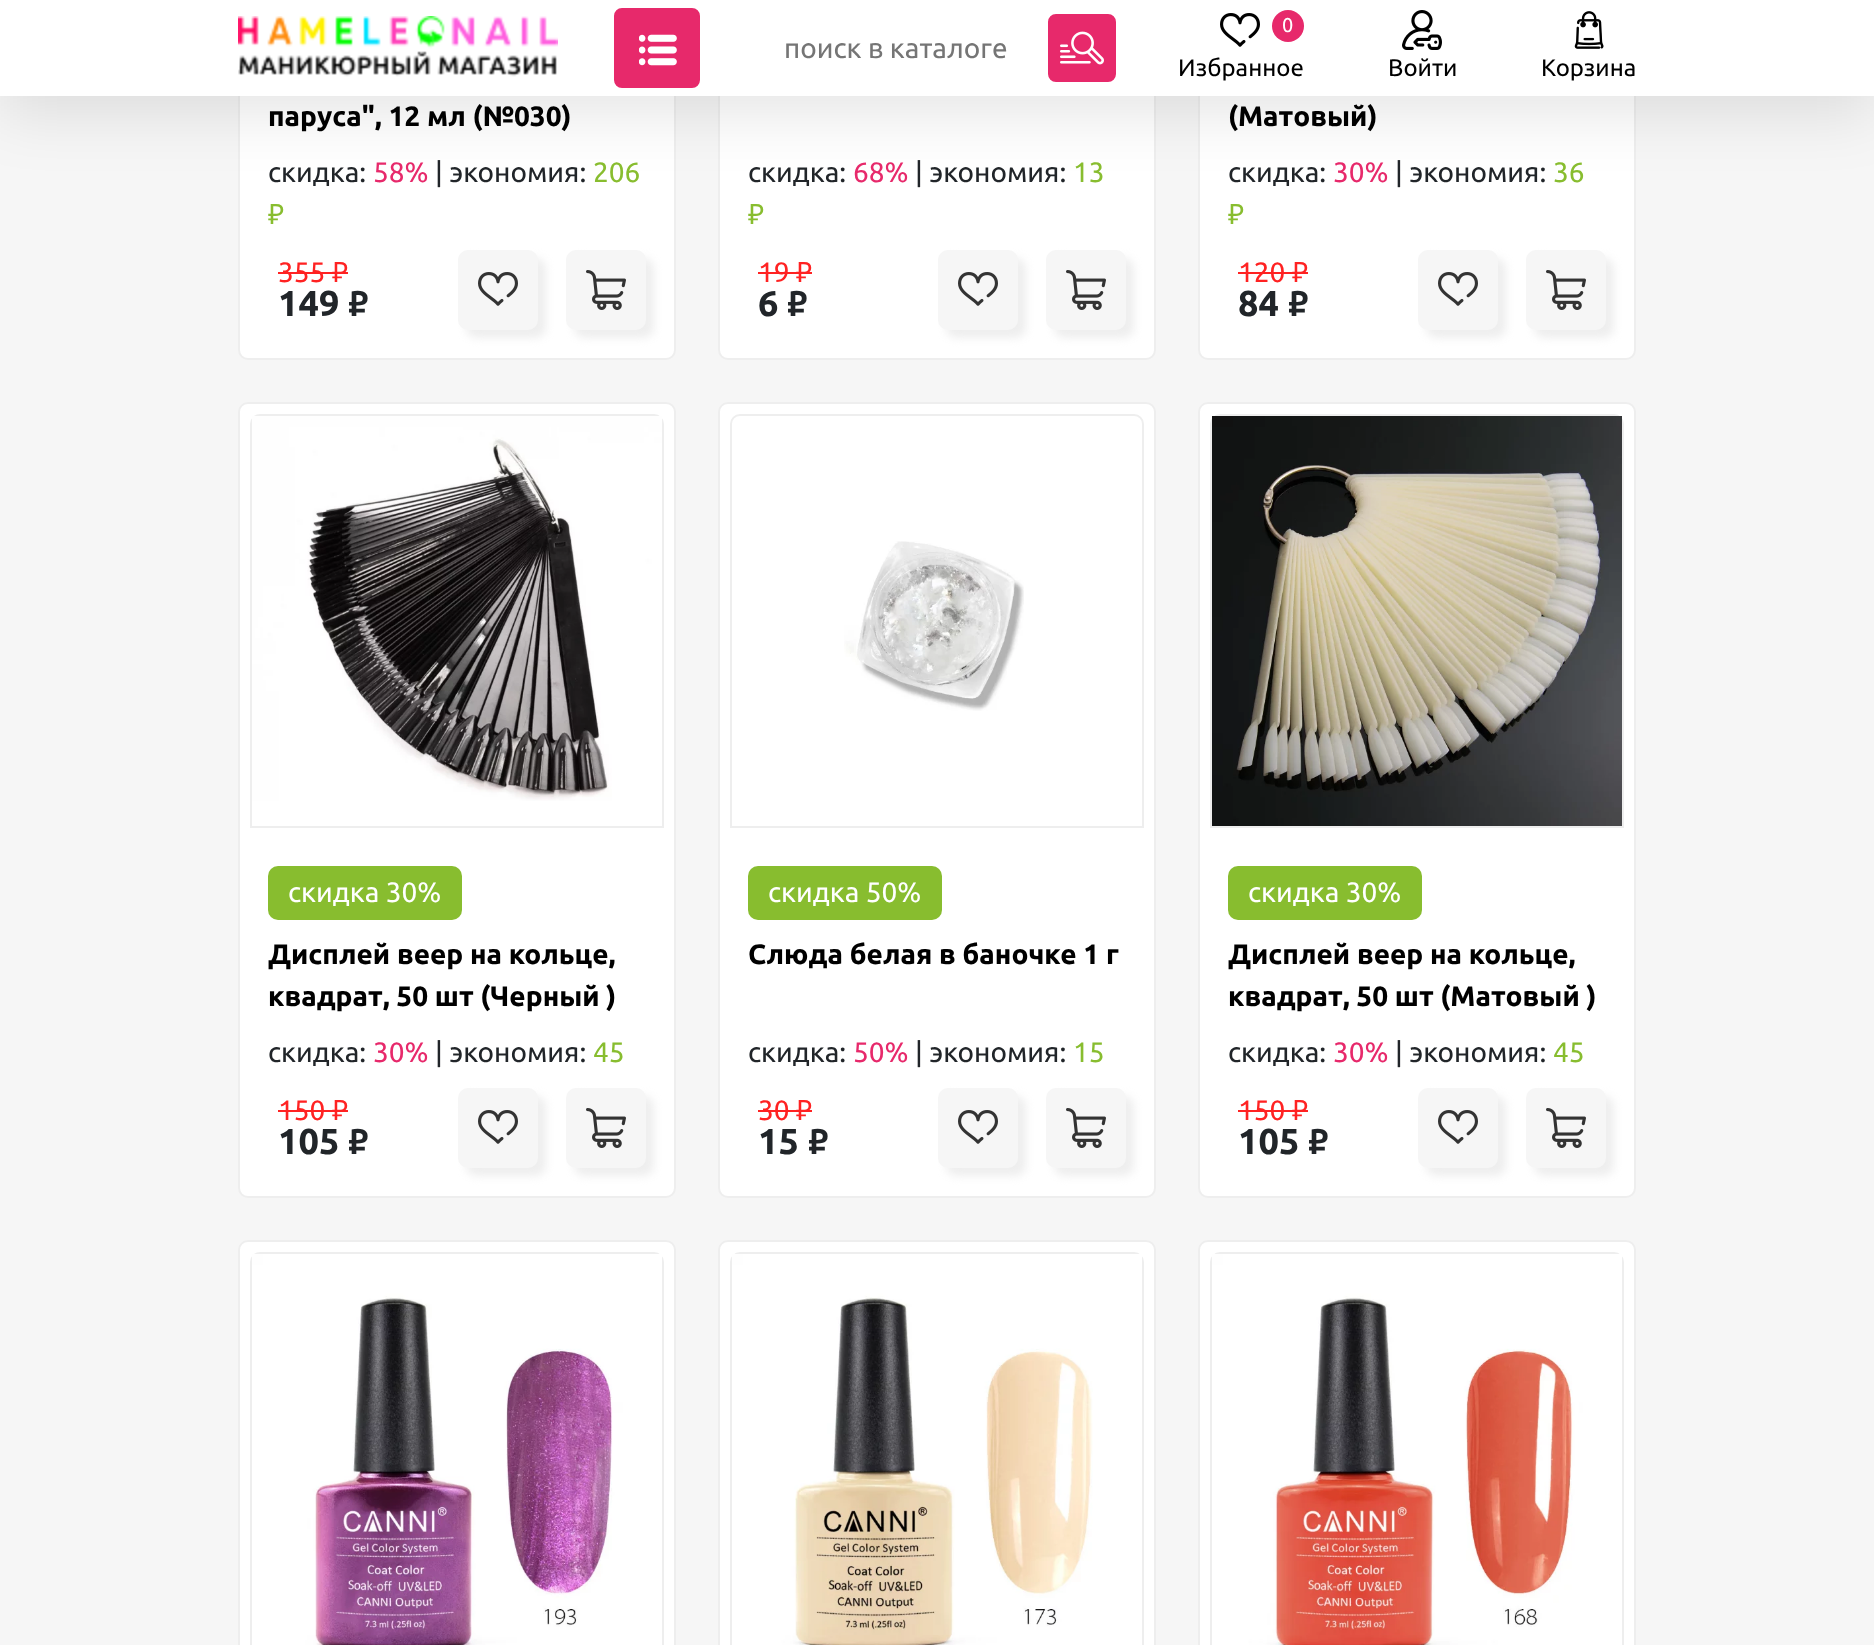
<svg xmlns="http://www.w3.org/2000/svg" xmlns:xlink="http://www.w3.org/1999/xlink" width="1874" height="1645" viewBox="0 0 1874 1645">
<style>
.cls-1{font:28px Ubuntu;fill:#757575}
.cls-2{font:20px Ubuntu;fill:#ffffff}
.cls-3{font:24px Ubuntu;fill:#000000}
.cls-4{font:bold 28px Ubuntu;fill:#000000}
.cls-5{font:28px Ubuntu;fill:#212529}
.cls-6{font:28px Ubuntu;fill:#e7296b}
.cls-7{font:28px Ubuntu;fill:#88bd2f}
.cls-8{font:28px Noto Sans;fill:#88bd2f}
.cls-9{font:28px Ubuntu;fill:#ff2222}
.cls-10{font:28px Noto Sans;fill:#ff2222}
.cls-11{font:bold 36px Ubuntu;fill:#212529}
.cls-12{font:bold 36px 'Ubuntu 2';fill:#212529}
.cls-13{font:28px Ubuntu;fill:#ffffff}
</style>
<rect width="100%" height="100%" fill="#f6f6f6"/>
<rect fill="#ffffff" stroke="#eeeeee" stroke-width="2" x="239" y="-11" width="436" height="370" rx="9"/>
<rect fill="#ffffff" stroke="#eeeeee" stroke-width="2" x="719" y="-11" width="436" height="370" rx="9"/>
<rect fill="#ffffff" stroke="#eeeeee" stroke-width="2" x="1199" y="-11" width="436" height="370" rx="9"/>
<rect fill="#000000" fill-opacity="0.1" filter="blur(30px)" x="0" y="18" width="1874" height="96"/>
<rect fill="#ffffff" x="0" y="0" width="1874" height="96"/>
<image xlink:href="image0.png" x="238" y="16" width="320" height="61"/>
<rect fill="#e7296b" stroke="#e7296b" stroke-width="2" x="615" y="9" width="84" height="78" rx="7"/>
<image xlink:href="image1.png" x="639" y="34" width="38" height="32"/>
<rect fill="#e7296b" stroke="#e7296b" stroke-width="2" x="1049" y="15" width="66" height="66" rx="7"/>
<image xlink:href="image2.png" x="1060" y="31" width="44" height="34"/>
<image xlink:href="image3.png" x="1220" y="13" width="40" height="34"/>
<circle fill="#e7296b" cx="1288" cy="26" r="16"/>
<image xlink:href="image4.png" x="1402" y="10" width="40" height="40"/>
<image xlink:href="image5.png" x="1574" y="11" width="30" height="38"/>
<rect fill="#ff2222" x="278" y="272" width="48" height="2"/>
<rect fill="#ff2222" x="326" y="272" width="22" height="2"/>
<rect fill="#eeeeee" filter="blur(4px)" x="466" y="258" width="80" height="80" rx="10"/>
<rect fill="#f6f6f6" x="458" y="250" width="80" height="80" rx="10"/>
<image xlink:href="image6.png" x="478" y="272" width="40" height="34"/>
<rect fill="#eeeeee" filter="blur(4px)" x="574" y="258" width="80" height="80" rx="10"/>
<rect fill="#f6f6f6" x="566" y="250" width="80" height="80" rx="10"/>
<image xlink:href="image7.png" x="586" y="270" width="40" height="40"/>
<rect fill="#ff2222" x="758" y="272" width="32" height="2"/>
<rect fill="#ff2222" x="790" y="272" width="22" height="2"/>
<rect fill="#eeeeee" filter="blur(4px)" x="946" y="258" width="80" height="80" rx="10"/>
<rect fill="#f6f6f6" x="938" y="250" width="80" height="80" rx="10"/>
<image xlink:href="image6.png" x="958" y="272" width="40" height="34"/>
<rect fill="#eeeeee" filter="blur(4px)" x="1054" y="258" width="80" height="80" rx="10"/>
<rect fill="#f6f6f6" x="1046" y="250" width="80" height="80" rx="10"/>
<image xlink:href="image7.png" x="1066" y="270" width="40" height="40"/>
<rect fill="#ff2222" x="1238" y="272" width="48" height="2"/>
<rect fill="#ff2222" x="1286" y="272" width="22" height="2"/>
<rect fill="#eeeeee" filter="blur(4px)" x="1426" y="258" width="80" height="80" rx="10"/>
<rect fill="#f6f6f6" x="1418" y="250" width="80" height="80" rx="10"/>
<image xlink:href="image6.png" x="1438" y="272" width="40" height="34"/>
<rect fill="#eeeeee" filter="blur(4px)" x="1534" y="258" width="80" height="80" rx="10"/>
<rect fill="#f6f6f6" x="1526" y="250" width="80" height="80" rx="10"/>
<image xlink:href="image7.png" x="1546" y="270" width="40" height="40"/>
<rect fill="#ffffff" stroke="#eeeeee" stroke-width="2" x="239" y="403" width="436" height="794" rx="9"/>
<path fill="none" stroke="#eeeeee" stroke-width="2" d="M260 415H654C659 415 663 419 663 424V827H251V424C251 419 255 415 260 415Z"/>
<image xlink:href="image8.png" x="252" y="416" width="410" height="385"/>
<rect fill="#88bd2f" x="268" y="866" width="194" height="54" rx="10"/>
<rect fill="#ff2222" x="278" y="1110" width="48" height="2"/>
<rect fill="#ff2222" x="326" y="1110" width="22" height="2"/>
<rect fill="#eeeeee" filter="blur(4px)" x="466" y="1096" width="80" height="80" rx="10"/>
<rect fill="#f6f6f6" x="458" y="1088" width="80" height="80" rx="10"/>
<image xlink:href="image6.png" x="478" y="1110" width="40" height="34"/>
<rect fill="#eeeeee" filter="blur(4px)" x="574" y="1096" width="80" height="80" rx="10"/>
<rect fill="#f6f6f6" x="566" y="1088" width="80" height="80" rx="10"/>
<image xlink:href="image7.png" x="586" y="1108" width="40" height="40"/>
<rect fill="#ffffff" stroke="#eeeeee" stroke-width="2" x="719" y="403" width="436" height="794" rx="9"/>
<path fill="none" stroke="#eeeeee" stroke-width="2" d="M740 415H1134C1139 415 1143 419 1143 424V827H731V424C731 419 735 415 740 415Z"/>
<image xlink:href="image9.png" x="844" y="541" width="180" height="170"/>
<rect fill="#88bd2f" x="748" y="866" width="194" height="54" rx="10"/>
<rect fill="#ff2222" x="758" y="1110" width="32" height="2"/>
<rect fill="#ff2222" x="790" y="1110" width="22" height="2"/>
<rect fill="#eeeeee" filter="blur(4px)" x="946" y="1096" width="80" height="80" rx="10"/>
<rect fill="#f6f6f6" x="938" y="1088" width="80" height="80" rx="10"/>
<image xlink:href="image6.png" x="958" y="1110" width="40" height="34"/>
<rect fill="#eeeeee" filter="blur(4px)" x="1054" y="1096" width="80" height="80" rx="10"/>
<rect fill="#f6f6f6" x="1046" y="1088" width="80" height="80" rx="10"/>
<image xlink:href="image7.png" x="1066" y="1108" width="40" height="40"/>
<rect fill="#ffffff" stroke="#eeeeee" stroke-width="2" x="1199" y="403" width="436" height="794" rx="9"/>
<path fill="none" stroke="#eeeeee" stroke-width="2" d="M1220 415H1614C1619 415 1623 419 1623 424V827H1211V424C1211 419 1215 415 1220 415Z"/>
<image xlink:href="image10.png" x="1212" y="416" width="410" height="410"/>
<rect fill="#88bd2f" x="1228" y="866" width="194" height="54" rx="10"/>
<rect fill="#ff2222" x="1238" y="1110" width="48" height="2"/>
<rect fill="#ff2222" x="1286" y="1110" width="22" height="2"/>
<rect fill="#eeeeee" filter="blur(4px)" x="1426" y="1096" width="80" height="80" rx="10"/>
<rect fill="#f6f6f6" x="1418" y="1088" width="80" height="80" rx="10"/>
<image xlink:href="image6.png" x="1438" y="1110" width="40" height="34"/>
<rect fill="#eeeeee" filter="blur(4px)" x="1534" y="1096" width="80" height="80" rx="10"/>
<rect fill="#f6f6f6" x="1526" y="1088" width="80" height="80" rx="10"/>
<image xlink:href="image7.png" x="1546" y="1108" width="40" height="40"/>
<rect fill="#ffffff" stroke="#eeeeee" stroke-width="2" x="239" y="1241" width="436" height="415" rx="9"/>
<path fill="none" stroke="#eeeeee" stroke-width="2" d="M260 1253H654C659 1253 663 1257 663 1262V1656H251V1262C251 1257 255 1253 260 1253Z"/>
<image xlink:href="image11.png" x="252" y="1254" width="410" height="391"/>
<rect fill="#ffffff" stroke="#eeeeee" stroke-width="2" x="719" y="1241" width="436" height="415" rx="9"/>
<path fill="none" stroke="#eeeeee" stroke-width="2" d="M740 1253H1134C1139 1253 1143 1257 1143 1262V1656H731V1262C731 1257 735 1253 740 1253Z"/>
<image xlink:href="image12.png" x="732" y="1254" width="410" height="391"/>
<rect fill="#ffffff" stroke="#eeeeee" stroke-width="2" x="1199" y="1241" width="436" height="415" rx="9"/>
<path fill="none" stroke="#eeeeee" stroke-width="2" d="M1220 1253H1614C1619 1253 1623 1257 1623 1262V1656H1211V1262C1211 1257 1215 1253 1220 1253Z"/>
<image xlink:href="image13.png" x="1212" y="1254" width="410" height="391"/>
<text class="cls-1" x="784" y="58">поиск в каталоге</text>
<text class="cls-2" x="1282" y="32">0</text>
<text class="cls-3" x="1178" y="76">Избранное</text>
<text class="cls-3" x="1388" y="76">Войти</text>
<text class="cls-3" x="1541" y="76">Корзина</text>
<text class="cls-4" x="268" y="126">паруса", 12 мл (№030)</text>
<text class="cls-5" x="268" y="182">скидка:</text>
<text class="cls-6" x="373" y="182">58%</text>
<text class="cls-5" x="435" y="182">| экономия:</text>
<text class="cls-7" x="593" y="182">206</text>
<text class="cls-8" x="268" y="224">₽</text>
<text class="cls-9" x="278" y="282">355</text>
<text class="cls-10" x="332" y="282">₽</text>
<text class="cls-11" x="278" y="316">149</text>
<text class="cls-12" x="348" y="316">₽</text>
<text class="cls-5" x="748" y="182">скидка:</text>
<text class="cls-6" x="853" y="182">68%</text>
<text class="cls-5" x="915" y="182">| экономия:</text>
<text class="cls-7" x="1073" y="182">13</text>
<text class="cls-8" x="748" y="224">₽</text>
<text class="cls-9" x="758" y="282">19</text>
<text class="cls-10" x="796" y="282">₽</text>
<text class="cls-11" x="758" y="316">6</text>
<text class="cls-12" x="787" y="316">₽</text>
<text class="cls-4" x="1228" y="126">(Матовый)</text>
<text class="cls-5" x="1228" y="182">скидка:</text>
<text class="cls-6" x="1333" y="182">30%</text>
<text class="cls-5" x="1395" y="182">| экономия:</text>
<text class="cls-7" x="1553" y="182">36</text>
<text class="cls-8" x="1228" y="224">₽</text>
<text class="cls-9" x="1238" y="282">120</text>
<text class="cls-10" x="1292" y="282">₽</text>
<text class="cls-11" x="1238" y="316">84</text>
<text class="cls-12" x="1288" y="316">₽</text>
<text class="cls-13" x="288" y="902">скидка 30%</text>
<text class="cls-4"><tspan x="268" y="964">Дисплей веер на кольце,</tspan><tspan x="268" y="1006">квадрат, 50 шт (Черный )</tspan></text>
<text class="cls-5" x="268" y="1062">скидка:</text>
<text class="cls-6" x="373" y="1062">30%</text>
<text class="cls-5" x="435" y="1062">| экономия:</text>
<text class="cls-7" x="593" y="1062">45</text>
<text class="cls-9" x="278" y="1120">150</text>
<text class="cls-10" x="332" y="1120">₽</text>
<text class="cls-11" x="278" y="1154">105</text>
<text class="cls-12" x="348" y="1154">₽</text>
<text class="cls-13" x="768" y="902">скидка 50%</text>
<text class="cls-4" x="748" y="964">Слюда белая в баночке 1 г</text>
<text class="cls-5" x="748" y="1062">скидка:</text>
<text class="cls-6" x="853" y="1062">50%</text>
<text class="cls-5" x="915" y="1062">| экономия:</text>
<text class="cls-7" x="1073" y="1062">15</text>
<text class="cls-9" x="758" y="1120">30</text>
<text class="cls-10" x="796" y="1120">₽</text>
<text class="cls-11" x="758" y="1154">15</text>
<text class="cls-12" x="808" y="1154">₽</text>
<text class="cls-13" x="1248" y="902">скидка 30%</text>
<text class="cls-4"><tspan x="1228" y="964">Дисплей веер на кольце,</tspan><tspan x="1228" y="1006">квадрат, 50 шт (Матовый )</tspan></text>
<text class="cls-5" x="1228" y="1062">скидка:</text>
<text class="cls-6" x="1333" y="1062">30%</text>
<text class="cls-5" x="1395" y="1062">| экономия:</text>
<text class="cls-7" x="1553" y="1062">45</text>
<text class="cls-9" x="1238" y="1120">150</text>
<text class="cls-10" x="1292" y="1120">₽</text>
<text class="cls-11" x="1238" y="1154">105</text>
<text class="cls-12" x="1308" y="1154">₽</text>
</svg>
